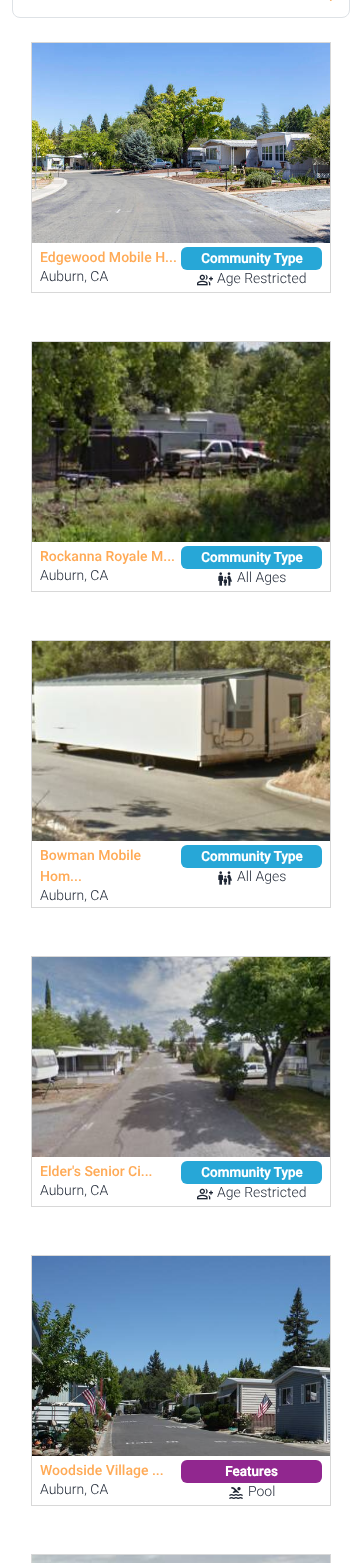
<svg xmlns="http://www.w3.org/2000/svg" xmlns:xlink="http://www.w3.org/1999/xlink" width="362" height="1563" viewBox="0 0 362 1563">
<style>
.cls-1{font:500 14px Roboto;fill:#ffaa56}
.cls-2{font:300 14px Roboto;fill:#1e2634}
.cls-3{font:bold 13.5px Roboto;fill:#ffffff}
</style>
<rect width="100%" height="100%" fill="#ffffff"/>
<rect fill="none" stroke="#dee2e6" x="12.5" y="-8.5" width="337" height="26" rx="7.5"/>
<image xlink:href="image0.png" x="329" y="0" width="3" height="1"/>
<rect fill="none" stroke="#d8d8d8" x="31.5" y="42.5" width="299" height="250"/>
<image xlink:href="image1.png" x="32" y="43" width="298" height="200"/>
<rect fill="#27a7d7" x="181" y="247" width="141" height="23" rx="6"/>
<image xlink:href="image2.png" x="197" y="274" width="16" height="12"/>
<rect fill="none" stroke="#d8d8d8" x="31.5" y="341.5" width="299" height="250"/>
<image xlink:href="image3.png" x="32" y="342" width="298" height="200"/>
<rect fill="#27a7d7" x="181" y="546" width="141" height="23" rx="6"/>
<image xlink:href="image4.png" x="218" y="572" width="14" height="14"/>
<rect fill="none" stroke="#d8d8d8" x="31.5" y="640.5" width="299" height="267"/>
<image xlink:href="image5.png" x="32" y="641" width="298" height="200"/>
<rect fill="#27a7d7" x="181" y="845" width="141" height="23" rx="6"/>
<image xlink:href="image4.png" x="218" y="871" width="14" height="14"/>
<rect fill="none" stroke="#d8d8d8" x="31.5" y="956.5" width="299" height="250"/>
<image xlink:href="image6.png" x="32" y="957" width="298" height="200"/>
<rect fill="#27a7d7" x="181" y="1161" width="141" height="23" rx="6"/>
<image xlink:href="image2.png" x="197" y="1188" width="16" height="12"/>
<rect fill="none" stroke="#d8d8d8" x="31.5" y="1255.5" width="299" height="250"/>
<image xlink:href="image7.png" x="32" y="1256" width="298" height="200"/>
<rect fill="#91278f" x="181" y="1460" width="141" height="23" rx="6"/>
<image xlink:href="image8.png" x="229" y="1487" width="14" height="12"/>
<rect fill="none" stroke="#d8d8d8" x="31.5" y="1554.5" width="299" height="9"/>
<image xlink:href="image9.png" x="32" y="1555" width="298" height="8"/>
<text class="cls-1" x="40" y="262">Edgewood Mobile H...</text>
<text class="cls-2" x="40" y="281">Auburn, CA</text>
<text class="cls-3" x="201" y="263">Community Type</text>
<text class="cls-2" x="217" y="283">Age Restricted</text>
<text class="cls-1" x="40" y="561">Rockanna Royale M...</text>
<text class="cls-2" x="40" y="580">Auburn, CA</text>
<text class="cls-3" x="201" y="562">Community Type</text>
<text class="cls-2" x="237" y="582">All Ages</text>
<text class="cls-1"><tspan x="40" y="860">Bowman Mobile</tspan><tspan x="40" y="881">Hom...</tspan></text>
<text class="cls-2" x="40" y="900">Auburn, CA</text>
<text class="cls-3" x="201" y="861">Community Type</text>
<text class="cls-2" x="237" y="881">All Ages</text>
<text class="cls-1" x="40" y="1176">Elder's Senior Ci...</text>
<text class="cls-2" x="40" y="1195">Auburn, CA</text>
<text class="cls-3" x="201" y="1177">Community Type</text>
<text class="cls-2" x="217" y="1197">Age Restricted</text>
<text class="cls-1" x="40" y="1475">Woodside Village ...</text>
<text class="cls-2" x="40" y="1494">Auburn, CA</text>
<text class="cls-3" x="225" y="1476">Features</text>
<text class="cls-2" x="248" y="1496">Pool</text>
</svg>
